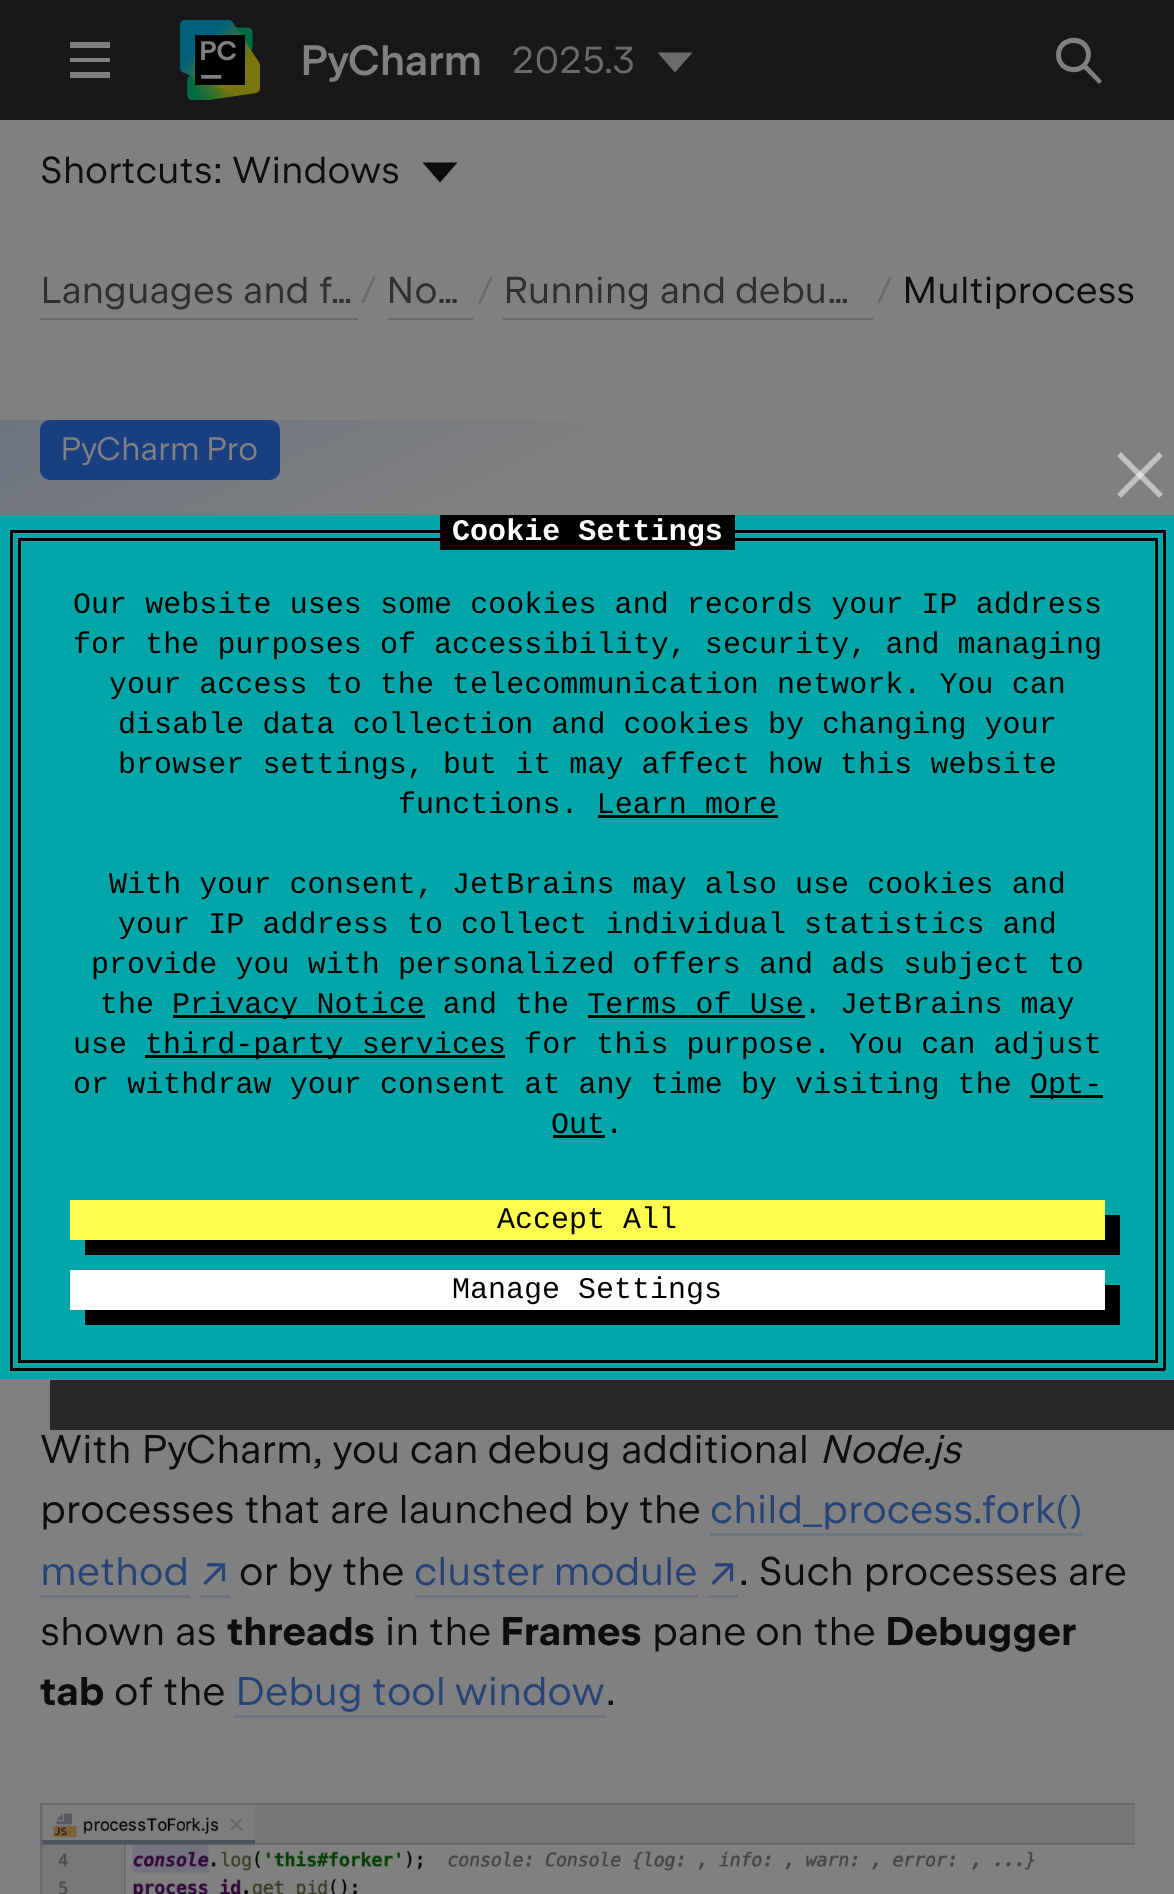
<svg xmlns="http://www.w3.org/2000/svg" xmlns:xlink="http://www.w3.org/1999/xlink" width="1174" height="1894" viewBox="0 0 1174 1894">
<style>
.cls-1{font:500 42.5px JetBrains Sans;letter-spacing:-0.25px;fill:#808080}
.cls-2{font:37.5px JetBrains Sans;letter-spacing:0.05px;fill:#6b6b6b}
.cls-3{font:37.5px JetBrains Sans;letter-spacing:0.05px;fill:#0d0d0e}
.cls-4{font:37.5px JetBrains Sans;letter-spacing:0.05px;fill:#2f2f30}
.cls-5{font:32.5px JetBrains Sans;letter-spacing:0.1px;fill:#808080}
.cls-6{font:40px JetBrains Sans;letter-spacing:0.05px;fill:#0d0d0e}
.cls-7{font:italic 40px JetBrains Sans;letter-spacing:0.05px;fill:#0d0d0e}
.cls-8{font:40px JetBrains Sans;letter-spacing:0.05px;fill:#284375}
.cls-9{font:40px Inter;letter-spacing:0.05px;fill:#284375}
.cls-10{font:600 40px JetBrains Sans;letter-spacing:0.05px;fill:#0d0d0e}
.cls-11{font:bold 30px Liberation Mono;letter-spacing:0.05px;fill:#ffffff}
.cls-12{font:30px Liberation Mono;letter-spacing:0.05px;fill:#000000}
.cls-13{font:30px Liberation Mono;fill:#000000}
</style>
<defs>
<linearGradient id="g1" gradientUnits="userSpaceOnUse" x1="272" y1="284" x2="783" y2="1381"><stop offset="0" stop-color="#6b7380"/><stop offset="0.24" stop-color="#808080"/></linearGradient>
<clipPath id="clip1"><rect x="0" y="220" width="1135" height="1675"/></clipPath>
</defs>
<rect width="100%" height="100%" fill="#808080"/>
<rect fill="#18181a" x="0" y="0" width="1174" height="120"/>
<path fill="#808080" d="M70 42H110V48H70ZM70 58H110V62H70ZM70 72H110V78H70Z"/>
<image xlink:href="image0.png" x="180" y="20" width="80" height="80"/>
<path fill="#6b6b6b" d="M675 72.5L657.5 52.5H692.5Z"/>
<path fill="#808080" d="M1056 55C1056 69 1072 77 1084 69L1099 84L1102 81L1087 65C1090 62 1091 57 1091 52C1087 31 1056 34 1056 55ZM1061 55C1061 39 1086 39 1086 55C1086 71 1061 71 1061 55Z"/>
<path fill="#0d0d0e" d="M440 182.5L422.5 162.5H457.5Z"/>
<rect fill="#696969" x="40" y="318" width="318" height="2"/>
<rect fill="#696969" x="388" y="318" width="85" height="2"/>
<rect fill="#696969" x="503" y="318" width="370" height="2"/>
<rect fill="url(#g1)" x="0" y="420" width="585" height="95"/>
<rect fill="#184080" x="40" y="420" width="240" height="60" rx="10"/>
<rect fill="#6e747e" x="710" y="1533" width="373" height="3"/>
<rect fill="#6e747e" x="40" y="1595" width="150" height="3"/>
<rect fill="#6e747e" x="200" y="1595" width="30" height="3"/>
<rect fill="#6e747e" x="415" y="1595" width="283" height="3"/>
<rect fill="#6e747e" x="708" y="1595" width="30" height="3"/>
<rect fill="#6e747e" x="235" y="1715" width="370" height="3"/>
<g clip-path="url(#clip1)">
<rect fill="none" stroke="#696969" stroke-width="3" x="41.5" y="1804.5" width="1097" height="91"/>
</g>
<image xlink:href="image1.png" x="42" y="1805" width="1093" height="89"/>
<path fill="#292929" d="M50 1380V1430H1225V565H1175V1380Z"/>
<rect fill="#01a7a8" x="0" y="515" width="1174" height="865"/>
<path fill="#bfbfbf" d="M1117 494L1159 452L1163 456L1121 498Z"/>
<path fill="#ffffff" fill-opacity="0.5" d="M1121 452L1163 494L1159 498L1117 456Z"/>
<rect fill="#000000" x="18" y="538" width="1140" height="3"/>
<rect fill="#000000" x="1155" y="538" width="3" height="825"/>
<rect fill="#000000" x="18" y="538" width="3" height="662"/>
<rect fill="#000000" x="10" y="530" width="1155" height="3"/>
<rect fill="#000000" x="440" y="515" width="295" height="35"/>
<rect fill="#000000" x="1163" y="530" width="3" height="840"/>
<rect fill="#000000" x="10" y="530" width="3" height="668"/>
<rect fill="#000000" x="598" y="815" width="180" height="3"/>
<rect fill="#000000" x="173" y="1015" width="252" height="3"/>
<rect fill="#000000" x="588" y="1015" width="217" height="3"/>
<rect fill="#000000" x="145" y="1055" width="360" height="3"/>
<rect fill="#000000" x="1030" y="1095" width="73" height="3"/>
<rect fill="#000000" x="553" y="1135" width="52" height="3"/>
<rect fill="#000000" x="18" y="1360" width="1140" height="3"/>
<rect fill="#000000" x="18" y="1200" width="3" height="163"/>
<rect fill="#000000" x="10" y="1368" width="1155" height="3"/>
<rect fill="#000000" x="10" y="1198" width="3" height="172"/>
<path fill="#000000" d="M85 1240V1255H1120V1215H1105V1240Z"/>
<rect fill="#fefc4f" x="70" y="1200" width="1035" height="40"/>
<path fill="#000000" d="M85 1310V1325H1120V1285H1105V1310Z"/>
<rect fill="#ffffff" x="70" y="1270" width="1035" height="40"/>
<text class="cls-1" x="300" y="75">PyCharm</text>
<text class="cls-2" x="512" y="73">2025.3</text>
<text class="cls-3" x="40" y="183">Shortcuts:</text>
<text class="cls-3" x="232" y="183">Windows</text>
<text class="cls-4" x="40" y="303">Languages and f…</text>
<text class="cls-2" x="361" y="303">/</text>
<text class="cls-4" x="386" y="303">No…</text>
<text class="cls-2" x="478" y="303">/</text>
<text class="cls-4" x="503" y="303">Running and debu…</text>
<text class="cls-2" x="877" y="303">/</text>
<text class="cls-3" x="902" y="303">Multiprocess</text>
<text class="cls-5" x="60" y="460" word-spacing="-2">PyCharm Pro</text>
<text class="cls-6" x="40" y="1463">With PyCharm, you can debug additional</text>
<text class="cls-7" x="819" y="1463">Node.js</text>
<text class="cls-6" x="40" y="1523">processes that are launched by the</text>
<text class="cls-8" x="710" y="1523">child_process.fork()</text>
<text class="cls-8" x="40" y="1585">method</text>
<text class="cls-9" x="199" y="1585">↗</text>
<text class="cls-6" x="239" y="1585">or by the</text>
<text class="cls-8" x="414" y="1585">cluster module</text>
<text class="cls-9" x="707" y="1585">↗</text>
<text class="cls-6" x="739" y="1585">. Such processes are</text>
<text class="cls-6" x="40" y="1645">shown as</text>
<text class="cls-10" x="227" y="1645">threads</text>
<text class="cls-6" x="385" y="1645">in the</text>
<text class="cls-10" x="500" y="1645">Frames</text>
<text class="cls-6" x="652" y="1645">pane on the</text>
<text class="cls-10" x="885" y="1645">Debugger</text>
<text class="cls-10" x="40" y="1705">tab</text>
<text class="cls-6" x="114" y="1705">of the</text>
<text class="cls-8" x="235" y="1705" word-spacing="-1">Debug tool window</text>
<text class="cls-6" x="606" y="1705">.</text>
<text class="cls-11" x="452" y="540">Cookie Settings</text>
<text class="cls-12"><tspan x="73" y="613">Our website uses some cookies and records your IP address</tspan><tspan x="73" y="653">for the purposes of accessibility, security, and managing</tspan></text>
<text class="cls-12" x="109" y="693">your access to the telecommunication network. You can</text>
<text class="cls-12"><tspan x="118" y="733">disable data collection and cookies by changing your</tspan><tspan x="118" y="773">browser settings, but it may affect how this website</tspan></text>
<text class="cls-12" x="398" y="813">functions. Learn more</text>
<text class="cls-12" x="109" y="893">With your consent, JetBrains may also use cookies and</text>
<text class="cls-12" x="118" y="933">your IP address to collect individual statistics and</text>
<text class="cls-12" x="91" y="973">provide you with personalized offers and ads subject to</text>
<text class="cls-12" x="100" y="1013">the</text>
<text class="cls-12" x="172" y="1013">Privacy Notice and the Terms of Use. JetBrains may</text>
<text class="cls-12" x="73" y="1053">use</text>
<text class="cls-12" x="145" y="1053">third-party services for this purpose. You can adjust</text>
<text class="cls-12" x="73" y="1093">or withdraw your consent at any time by visiting the</text>
<text class="cls-12" x="1030" y="1093">Opt-</text>
<text class="cls-12" x="551" y="1133">Out.</text>
<text class="cls-13" x="497" y="1228">Accept All</text>
<text class="cls-13" x="452" y="1298">Manage Settings</text>
</svg>
